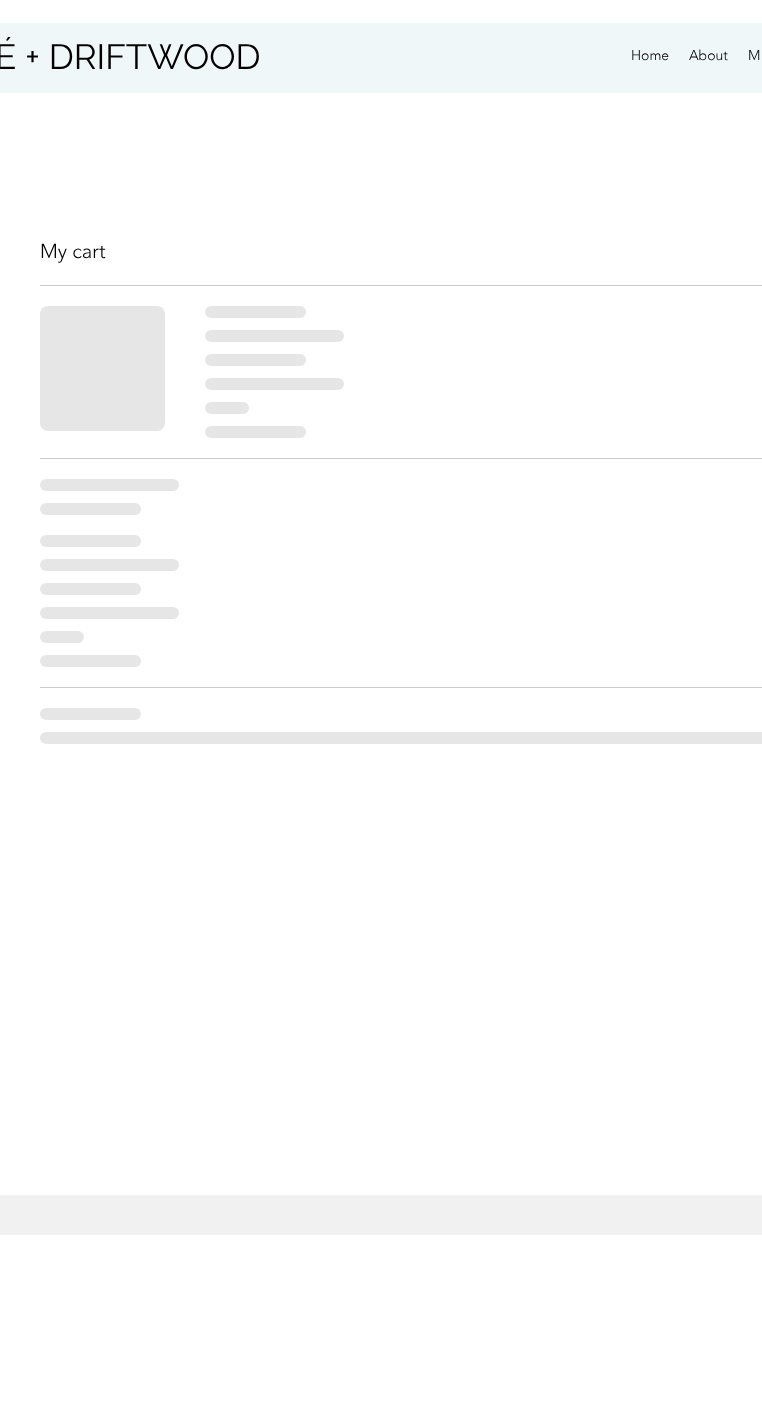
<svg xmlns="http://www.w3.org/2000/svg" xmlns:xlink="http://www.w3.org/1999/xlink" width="762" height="1401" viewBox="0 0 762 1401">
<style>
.cls-1{font:35px Raleway;fill:#000000}
.cls-2{font:300 14px 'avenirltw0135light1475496';fill:#000000}
.cls-3{font:300 20px 'avenirltw0135light1475496';fill:#000000}
</style>
<defs>
<linearGradient id="g1" gradientUnits="userSpaceOnUse" x1="40" y1="369" x2="540" y2="369"><stop offset="0.25" stop-color="#e6e6e6"/><stop offset="0.37" stop-color="#cccccc"/><stop offset="0.63" stop-color="#e6e6e6"/></linearGradient>
<linearGradient id="g2" gradientUnits="userSpaceOnUse" x1="205" y1="312" x2="609" y2="312"><stop offset="0.25" stop-color="#e6e6e6"/><stop offset="0.37" stop-color="#cccccc"/><stop offset="0.63" stop-color="#e6e6e6"/></linearGradient>
<linearGradient id="g3" gradientUnits="userSpaceOnUse" x1="205" y1="336" x2="761" y2="336"><stop offset="0.25" stop-color="#e6e6e6"/><stop offset="0.37" stop-color="#cccccc"/><stop offset="0.63" stop-color="#e6e6e6"/></linearGradient>
<linearGradient id="g4" gradientUnits="userSpaceOnUse" x1="205" y1="360" x2="609" y2="360"><stop offset="0.25" stop-color="#e6e6e6"/><stop offset="0.37" stop-color="#cccccc"/><stop offset="0.63" stop-color="#e6e6e6"/></linearGradient>
<linearGradient id="g5" gradientUnits="userSpaceOnUse" x1="205" y1="384" x2="761" y2="384"><stop offset="0.25" stop-color="#e6e6e6"/><stop offset="0.37" stop-color="#cccccc"/><stop offset="0.63" stop-color="#e6e6e6"/></linearGradient>
<linearGradient id="g6" gradientUnits="userSpaceOnUse" x1="205" y1="408" x2="381" y2="408"><stop offset="0.25" stop-color="#e6e6e6"/><stop offset="0.37" stop-color="#cccccc"/><stop offset="0.63" stop-color="#e6e6e6"/></linearGradient>
<linearGradient id="g7" gradientUnits="userSpaceOnUse" x1="205" y1="432" x2="609" y2="432"><stop offset="0.25" stop-color="#e6e6e6"/><stop offset="0.37" stop-color="#cccccc"/><stop offset="0.63" stop-color="#e6e6e6"/></linearGradient>
<linearGradient id="g8" gradientUnits="userSpaceOnUse" x1="40" y1="485" x2="596" y2="485"><stop offset="0.25" stop-color="#e6e6e6"/><stop offset="0.37" stop-color="#cccccc"/><stop offset="0.63" stop-color="#e6e6e6"/></linearGradient>
<linearGradient id="g9" gradientUnits="userSpaceOnUse" x1="40" y1="509" x2="444" y2="509"><stop offset="0.25" stop-color="#e6e6e6"/><stop offset="0.37" stop-color="#cccccc"/><stop offset="0.63" stop-color="#e6e6e6"/></linearGradient>
<linearGradient id="g10" gradientUnits="userSpaceOnUse" x1="40" y1="541" x2="444" y2="541"><stop offset="0.25" stop-color="#e6e6e6"/><stop offset="0.37" stop-color="#cccccc"/><stop offset="0.63" stop-color="#e6e6e6"/></linearGradient>
<linearGradient id="g11" gradientUnits="userSpaceOnUse" x1="40" y1="565" x2="596" y2="565"><stop offset="0.25" stop-color="#e6e6e6"/><stop offset="0.37" stop-color="#cccccc"/><stop offset="0.63" stop-color="#e6e6e6"/></linearGradient>
<linearGradient id="g12" gradientUnits="userSpaceOnUse" x1="40" y1="589" x2="444" y2="589"><stop offset="0.25" stop-color="#e6e6e6"/><stop offset="0.37" stop-color="#cccccc"/><stop offset="0.63" stop-color="#e6e6e6"/></linearGradient>
<linearGradient id="g13" gradientUnits="userSpaceOnUse" x1="40" y1="613" x2="596" y2="613"><stop offset="0.25" stop-color="#e6e6e6"/><stop offset="0.37" stop-color="#cccccc"/><stop offset="0.63" stop-color="#e6e6e6"/></linearGradient>
<linearGradient id="g14" gradientUnits="userSpaceOnUse" x1="40" y1="637" x2="216" y2="637"><stop offset="0.25" stop-color="#e6e6e6"/><stop offset="0.37" stop-color="#cccccc"/><stop offset="0.63" stop-color="#e6e6e6"/></linearGradient>
<linearGradient id="g15" gradientUnits="userSpaceOnUse" x1="40" y1="661" x2="444" y2="661"><stop offset="0.25" stop-color="#e6e6e6"/><stop offset="0.37" stop-color="#cccccc"/><stop offset="0.63" stop-color="#e6e6e6"/></linearGradient>
<linearGradient id="g16" gradientUnits="userSpaceOnUse" x1="40" y1="714" x2="444" y2="714"><stop offset="0.25" stop-color="#e6e6e6"/><stop offset="0.37" stop-color="#cccccc"/><stop offset="0.63" stop-color="#e6e6e6"/></linearGradient>
<linearGradient id="g17" gradientUnits="userSpaceOnUse" x1="40" y1="738" x2="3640" y2="738"><stop offset="0.25" stop-color="#e6e6e6"/><stop offset="0.37" stop-color="#cccccc"/><stop offset="0.63" stop-color="#e6e6e6"/></linearGradient>
</defs>
<rect width="100%" height="100%" fill="#ffffff"/>
<rect fill="#f0f7f9" x="0" y="23" width="762" height="70"/>
<rect fill="#cccccc" x="40" y="285" width="722" height="1"/>
<rect fill="url(#g1)" x="40" y="306" width="125" height="125" rx="8"/>
<rect fill="url(#g2)" x="205" y="306" width="101" height="12" rx="6"/>
<rect fill="url(#g3)" x="205" y="330" width="139" height="12" rx="6"/>
<rect fill="url(#g4)" x="205" y="354" width="101" height="12" rx="6"/>
<rect fill="url(#g5)" x="205" y="378" width="139" height="12" rx="6"/>
<rect fill="url(#g6)" x="205" y="402" width="44" height="12" rx="6"/>
<rect fill="url(#g7)" x="205" y="426" width="101" height="12" rx="6"/>
<rect fill="#cccccc" x="40" y="458" width="722" height="1"/>
<rect fill="url(#g8)" x="40" y="479" width="139" height="12" rx="6"/>
<rect fill="url(#g9)" x="40" y="503" width="101" height="12" rx="6"/>
<rect fill="url(#g10)" x="40" y="535" width="101" height="12" rx="6"/>
<rect fill="url(#g11)" x="40" y="559" width="139" height="12" rx="6"/>
<rect fill="url(#g12)" x="40" y="583" width="101" height="12" rx="6"/>
<rect fill="url(#g13)" x="40" y="607" width="139" height="12" rx="6"/>
<rect fill="url(#g14)" x="40" y="631" width="44" height="12" rx="6"/>
<rect fill="url(#g15)" x="40" y="655" width="101" height="12" rx="6"/>
<rect fill="#cccccc" x="40" y="687" width="722" height="1"/>
<rect fill="url(#g16)" x="40" y="708" width="101" height="12" rx="6"/>
<rect fill="url(#g17)" x="40" y="732" width="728" height="12" rx="6"/>
<rect fill="#f1f1f1" x="0" y="1195" width="762" height="40"/>
<text class="cls-1" x="-5" y="69">É + DRIFTWOOD</text>
<text class="cls-2" x="631" y="60">Home</text>
<text class="cls-2" x="689" y="60">About</text>
<text class="cls-2" x="748" y="60">M</text>
<text class="cls-3" x="40" y="258">My cart</text>
</svg>
